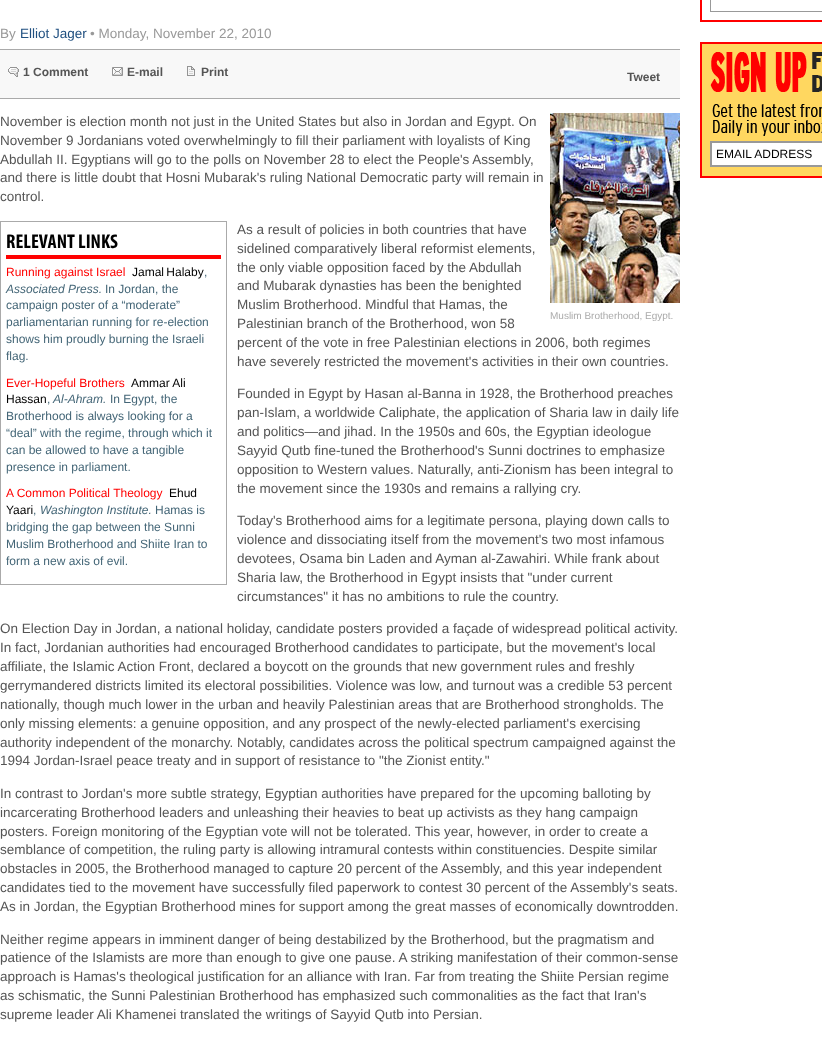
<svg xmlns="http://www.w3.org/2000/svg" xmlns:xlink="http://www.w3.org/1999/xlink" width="822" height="1039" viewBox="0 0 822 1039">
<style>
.cls-1{font:13.5px Liberation Sans;fill:#999999}
.cls-2{font:13.5px Liberation Sans;fill:#205080}
.cls-3{font:bold 12px Liberation Sans;fill:#555555}
.cls-4{font:13.5px Liberation Sans;fill:#555555}
.cls-5{font:bold 20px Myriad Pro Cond;fill:#000000}
.cls-6{font:12px Liberation Sans;fill:#ff0000}
.cls-7{font:12px Liberation Sans;fill:#000000}
.cls-8{font:12px Liberation Sans;fill:#446677}
.cls-9{font:italic 12px Liberation Sans;fill:#446677}
.cls-10{font:10px Liberation Sans;fill:#aaaaaa}
</style>
<rect width="100%" height="100%" fill="#ffffff"/>
<rect fill="#f8f8f8" x="0" y="50" width="680" height="48"/>
<rect fill="#aaaaaa" x="0" y="49" width="680" height="1"/>
<rect fill="#aaaaaa" x="0" y="98" width="680" height="1"/>
<image xlink:href="image0.png" x="8" y="67" width="11" height="10"/>
<image xlink:href="image1.png" x="112" y="67" width="11" height="9"/>
<image xlink:href="image2.png" x="187" y="66" width="8" height="10"/>
<rect fill="none" stroke="#aaaaaa" x="0.5" y="221.5" width="226" height="363"/>
<rect fill="#ff0000" x="6" y="255" width="215" height="4"/>
<image xlink:href="image3.png" x="550" y="113" width="130" height="190"/>
<rect fill="none" stroke="#ff0000" stroke-width="2" x="701" y="-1" width="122" height="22"/>
<rect fill="none" stroke="#999999" x="710.5" y="-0.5" width="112" height="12"/>
<rect fill="#ffd760" stroke="#ff0000" stroke-width="2" x="701" y="43" width="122" height="134"/>
<image xlink:href="image4.png" x="710" y="52" width="112" height="84"/>
<rect fill="#ffffff" stroke="#999999" stroke-width="2" x="711" y="142" width="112" height="24"/>
<text class="cls-1" x="0" y="38">By</text>
<text class="cls-2" x="20" y="38">Elliot Jager</text>
<text class="cls-1" x="90" y="38">• Monday, November 22, 2010</text>
<text class="cls-3" x="23" y="76">1 Comment</text>
<text class="cls-3" x="127" y="76">E-mail</text>
<text class="cls-3" x="201" y="76">Print</text>
<text class="cls-3" x="627" y="81">Tweet</text>
<text class="cls-4"><tspan x="0" y="126">November is election month not just in the United States but also in Jordan and Egypt. On</tspan><tspan x="0" y="145">November 9 Jordanians voted overwhelmingly to fill their parliament with loyalists of King</tspan><tspan x="0" y="164">Abdullah II. Egyptians will go to the polls on November 28 to elect the People's Assembly,</tspan><tspan x="0" y="182">and there is little doubt that Hosni Mubarak's ruling National Democratic party will remain in</tspan><tspan x="0" y="201">control.</tspan></text>
<text class="cls-5" x="6" y="248">RELEVANT LINKS</text>
<text class="cls-6" x="6" y="276">Running against Israel</text>
<text class="cls-7" x="132" y="276" word-spacing="-1">Jamal Halaby</text>
<text class="cls-8" x="204" y="276">,</text>
<text class="cls-9" x="6" y="293">Associated Press.</text>
<text class="cls-8" x="105" y="293">In Jordan, the</text>
<text class="cls-8"><tspan x="6" y="309">campaign poster of a “moderate”</tspan><tspan x="6" y="326">parliamentarian running for re-election</tspan><tspan x="6" y="343">shows him proudly burning the Israeli</tspan><tspan x="6" y="360">flag.</tspan></text>
<text class="cls-6" x="6" y="387">Ever-Hopeful Brothers</text>
<text class="cls-7" x="131" y="387">Ammar Ali</text>
<text class="cls-7" x="6" y="403">Hassan</text>
<text class="cls-8" x="47" y="403">,</text>
<text class="cls-9" x="53" y="403">Al-Ahram.</text>
<text class="cls-8" x="110" y="403">In Egypt, the</text>
<text class="cls-8"><tspan x="6" y="420">Brotherhood is always looking for a</tspan><tspan x="6" y="437">“deal” with the regime, through which it</tspan><tspan x="6" y="454">can be allowed to have a tangible</tspan><tspan x="6" y="471">presence in parliament.</tspan></text>
<text class="cls-6" x="6" y="497">A Common Political Theology</text>
<text class="cls-7" x="169" y="497">Ehud</text>
<text class="cls-7" x="6" y="514">Yaari</text>
<text class="cls-8" x="33" y="514">,</text>
<text class="cls-9" x="40" y="514">Washington Institute.</text>
<text class="cls-8" x="155" y="514">Hamas is</text>
<text class="cls-8"><tspan x="6" y="531">bridging the gap between the Sunni</tspan><tspan x="6" y="548">Muslim Brotherhood and Shiite Iran to</tspan><tspan x="6" y="565">form a new axis of evil.</tspan></text>
<text class="cls-4"><tspan x="237" y="234">As a result of policies in both countries that have</tspan><tspan x="237" y="253">sidelined comparatively liberal reformist elements,</tspan><tspan x="237" y="272">the only viable opposition faced by the Abdullah</tspan><tspan x="237" y="290">and Mubarak dynasties has been the benighted</tspan><tspan x="237" y="309">Muslim Brotherhood. Mindful that Hamas, the</tspan><tspan x="237" y="328">Palestinian branch of the Brotherhood, won 58</tspan><tspan x="237" y="347">percent of the vote in free Palestinian elections in 2006, both regimes</tspan><tspan x="237" y="366">have severely restricted the movement's activities in their own countries.</tspan></text>
<text class="cls-10" x="550" y="319">Muslim Brotherhood, Egypt.</text>
<text class="cls-4"><tspan x="237" y="398">Founded in Egypt by Hasan al-Banna in 1928, the Brotherhood preaches</tspan><tspan x="237" y="417">pan-Islam, a worldwide Caliphate, the application of Sharia law in daily life</tspan><tspan x="237" y="436">and politics—and jihad. In the 1950s and 60s, the Egyptian ideologue</tspan><tspan x="237" y="455">Sayyid Qutb fine-tuned the Brotherhood's Sunni doctrines to emphasize</tspan><tspan x="237" y="474">opposition to Western values. Naturally, anti-Zionism has been integral to</tspan><tspan x="237" y="493">the movement since the 1930s and remains a rallying cry.</tspan></text>
<text class="cls-4"><tspan x="237" y="525">Today's Brotherhood aims for a legitimate persona, playing down calls to</tspan><tspan x="237" y="544">violence and dissociating itself from the movement's two most infamous</tspan><tspan x="237" y="563">devotees, Osama bin Laden and Ayman al-Zawahiri. While frank about</tspan><tspan x="237" y="582">Sharia law, the Brotherhood in Egypt insists that "under current</tspan><tspan x="237" y="601">circumstances" it has no ambitions to rule the country.</tspan></text>
<text class="cls-4"><tspan x="0" y="633">On Election Day in Jordan, a national holiday, candidate posters provided a façade of widespread political activity.</tspan><tspan x="0" y="652">In fact, Jordanian authorities had encouraged Brotherhood candidates to participate, but the movement's local</tspan><tspan x="0" y="671">affiliate, the Islamic Action Front, declared a boycott on the grounds that new government rules and freshly</tspan><tspan x="0" y="690">gerrymandered districts limited its electoral possibilities. Violence was low, and turnout was a credible 53 percent</tspan><tspan x="0" y="709">nationally, though much lower in the urban and heavily Palestinian areas that are Brotherhood strongholds. The</tspan><tspan x="0" y="728">only missing elements: a genuine opposition, and any prospect of the newly-elected parliament's exercising</tspan><tspan x="0" y="747">authority independent of the monarchy. Notably, candidates across the political spectrum campaigned against the</tspan><tspan x="0" y="765">1994 Jordan-Israel peace treaty and in support of resistance to "the Zionist entity."</tspan></text>
<text class="cls-4"><tspan x="0" y="798">In contrast to Jordan's more subtle strategy, Egyptian authorities have prepared for the upcoming balloting by</tspan><tspan x="0" y="817">incarcerating Brotherhood leaders and unleashing their heavies to beat up activists as they hang campaign</tspan><tspan x="0" y="836">posters. Foreign monitoring of the Egyptian vote will not be tolerated. This year, however, in order to create a</tspan><tspan x="0" y="854">semblance of competition, the ruling party is allowing intramural contests within constituencies. Despite similar</tspan><tspan x="0" y="873">obstacles in 2005, the Brotherhood managed to capture 20 percent of the Assembly, and this year independent</tspan><tspan x="0" y="892">candidates tied to the movement have successfully filed paperwork to contest 30 percent of the Assembly's seats.</tspan><tspan x="0" y="911">As in Jordan, the Egyptian Brotherhood mines for support among the great masses of economically downtrodden.</tspan></text>
<text class="cls-4"><tspan x="0" y="944">Neither regime appears in imminent danger of being destabilized by the Brotherhood, but the pragmatism and</tspan><tspan x="0" y="962">patience of the Islamists are more than enough to give one pause. A striking manifestation of their common-sense</tspan><tspan x="0" y="981">approach is Hamas's theological justification for an alliance with Iran. Far from treating the Shiite Persian regime</tspan><tspan x="0" y="1000">as schismatic, the Sunni Palestinian Brotherhood has emphasized such commonalities as the fact that Iran's</tspan><tspan x="0" y="1019">supreme leader Ali Khamenei translated the writings of Sayyid Qutb into Persian.</tspan></text>
<text class="cls-7" x="716" y="158">EMAIL ADDRESS</text>
</svg>
